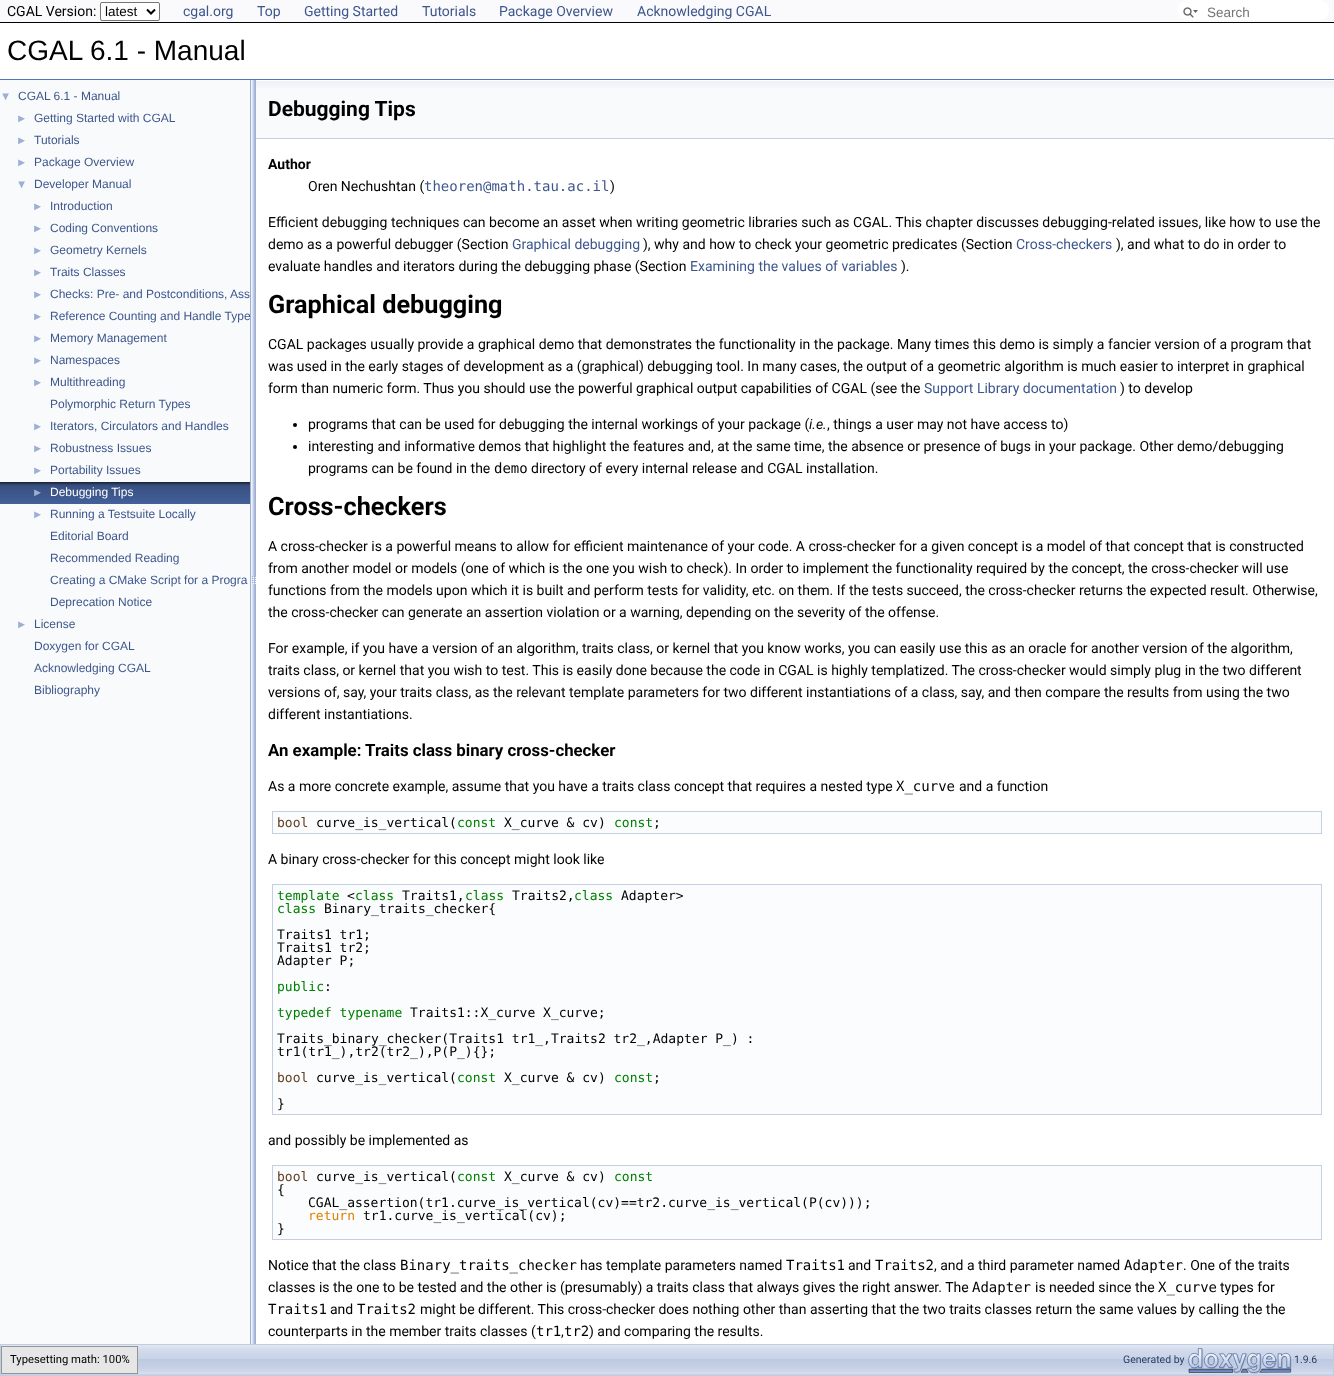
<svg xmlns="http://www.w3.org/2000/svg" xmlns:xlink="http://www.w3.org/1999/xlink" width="1334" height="1376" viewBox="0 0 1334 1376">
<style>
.cls-1{font:14px Roboto;fill:#000000}
.cls-2{font:13.5px Liberation Sans;fill:#000000}
.cls-3{font:14px Roboto;fill:#3d578c}
.cls-4{font:13.5px Liberation Sans;fill:#757575}
.cls-5{font:28px Liberation Sans;fill:#000000}
.cls-6{font:11.25px Liberation Sans;fill:#9cafd4}
.cls-7{font:12px Liberation Sans;fill:#3d578c}
.cls-8{font:12px Liberation Sans;fill:#ffffff}
.cls-9{font:bold 21px Roboto;fill:#000000}
.cls-10{font:bold 14px Roboto;fill:#000000}
.cls-11{font:14px DejaVu Sans Mono;fill:#3d578c}
.cls-12{font:bold 25.25px Roboto;fill:#000000}
.cls-13{font:italic 14px Roboto;fill:#000000}
.cls-14{font:14px DejaVu Sans Mono;fill:#000000}
.cls-15{font:bold 16.8px Roboto;fill:#000000}
.cls-16{font:13px DejaVu Sans Mono;fill:#604020}
.cls-17{font:13px DejaVu Sans Mono;fill:#000000}
.cls-18{font:13px DejaVu Sans Mono;fill:#008000}
.cls-19{font:13px DejaVu Sans Mono;fill:#e08000}
.cls-20{font:11.25px Roboto;fill:#000000}
.cls-21{font:10.5px Roboto;fill:#2a3d61}
</style>
<rect width="100%" height="100%" fill="#ffffff"/>
<rect fill="#faf9fb" x="0" y="0" width="1334" height="22"/>
<rect fill="#000000" x="0" y="22" width="1334" height="1"/>
<rect fill="#ffffff" stroke="#767676" x="100.5" y="2.5" width="59" height="18" rx="1.5"/>
<path fill="none" stroke="#000000" stroke-width="2" d="M147 9.5L151 13.5L155 9.5"/>
<rect fill="#ffffff" x="1178" y="0" width="151" height="20" rx="9"/>
<image xlink:href="image0.png" x="1183" y="7" width="15" height="11"/>
<rect fill="#5373b4" x="0" y="79" width="1334" height="1"/>
<rect fill="#f9fafc" x="0" y="80" width="250" height="1264"/>
<image xlink:href="image1.png" x="0" y="482" width="250" height="22"/>
<image xlink:href="image2.png" x="250" y="80" width="6" height="1264"/>
<rect fill="#f9fafc" x="256" y="88" width="1078" height="50"/>
<image xlink:href="image3.png" x="256" y="80" width="1078" height="8"/>
<rect fill="#c4cfe5" x="256" y="138" width="1078" height="1"/>
<circle fill="#000000" cx="295" cy="425" r="2"/>
<circle fill="#000000" cx="295" cy="447" r="2"/>
<rect fill="#fbfcfd" stroke="#c4cfe5" x="272.5" y="811.5" width="1049" height="22"/>
<rect fill="#fbfcfd" stroke="#c4cfe5" x="272.5" y="884.5" width="1049" height="230"/>
<rect fill="#fbfcfd" stroke="#c4cfe5" x="272.5" y="1165.5" width="1049" height="74"/>
<image xlink:href="image4.png" x="1" y="1345" width="1332" height="30"/>
<rect fill="none" stroke="#c2cde4" x="0.5" y="1344.5" width="1333" height="31"/>
<rect fill="#e6e6e6" stroke="#959595" x="1.5" y="1346.5" width="136" height="27"/>
<image xlink:href="image5.png" x="1188" y="1348" width="104" height="26"/>
<text class="cls-1" x="7" y="16">CGAL Version:</text>
<text class="cls-2" x="105" y="16">latest</text>
<text class="cls-3" x="183" y="16">cgal.org</text>
<text class="cls-3" x="257" y="16">Top</text>
<text class="cls-3" x="304" y="16">Getting Started</text>
<text class="cls-3" x="422" y="16">Tutorials</text>
<text class="cls-3" x="499" y="16">Package Overview</text>
<text class="cls-3" x="637" y="16">Acknowledging CGAL</text>
<text class="cls-4" x="1207" y="17">Search</text>
<text class="cls-5" x="7" y="60">CGAL 6.1 - Manual</text>
<text class="cls-6" x="0" y="100">▼</text>
<text class="cls-7" x="18" y="100">CGAL 6.1 - Manual</text>
<text class="cls-6" x="16" y="122">►</text>
<text class="cls-7" x="34" y="122">Getting Started with CGAL</text>
<text class="cls-6" x="16" y="144">►</text>
<text class="cls-7" x="34" y="144">Tutorials</text>
<text class="cls-6" x="16" y="166">►</text>
<text class="cls-7" x="34" y="166">Package Overview</text>
<text class="cls-6" x="16" y="188">▼</text>
<text class="cls-7" x="34" y="188">Developer Manual</text>
<text class="cls-6" x="32" y="210">►</text>
<text class="cls-7" x="50" y="210">Introduction</text>
<text class="cls-6" x="32" y="232">►</text>
<text class="cls-7" x="50" y="232">Coding Conventions</text>
<text class="cls-6" x="32" y="254">►</text>
<text class="cls-7" x="50" y="254">Geometry Kernels</text>
<text class="cls-6" x="32" y="276">►</text>
<text class="cls-7" x="50" y="276">Traits Classes</text>
<text class="cls-6" x="32" y="298">►</text>
<text class="cls-7" x="50" y="298">Checks: Pre- and Postconditions, Ass</text>
<text class="cls-6" x="32" y="320">►</text>
<text class="cls-7" x="50" y="320">Reference Counting and Handle Type</text>
<text class="cls-6" x="32" y="342">►</text>
<text class="cls-7" x="50" y="342">Memory Management</text>
<text class="cls-6" x="32" y="364">►</text>
<text class="cls-7" x="50" y="364">Namespaces</text>
<text class="cls-6" x="32" y="386">►</text>
<text class="cls-7"><tspan x="50" y="386">Multithreading</tspan><tspan x="50" y="408">Polymorphic Return Types</tspan></text>
<text class="cls-6" x="32" y="430">►</text>
<text class="cls-7" x="50" y="430">Iterators, Circulators and Handles</text>
<text class="cls-6" x="32" y="452">►</text>
<text class="cls-7" x="50" y="452">Robustness Issues</text>
<text class="cls-6" x="32" y="474">►</text>
<text class="cls-7" x="50" y="474">Portability Issues</text>
<text class="cls-6" x="32" y="496">►</text>
<text class="cls-8" x="50" y="496">Debugging Tips</text>
<text class="cls-6" x="32" y="518">►</text>
<text class="cls-7"><tspan x="50" y="518">Running a Testsuite Locally</tspan><tspan x="50" y="540">Editorial Board</tspan><tspan x="50" y="562">Recommended Reading</tspan><tspan x="50" y="584">Creating a CMake Script for a Progra</tspan><tspan x="50" y="606">Deprecation Notice</tspan></text>
<text class="cls-6" x="16" y="628">►</text>
<text class="cls-7"><tspan x="34" y="628">License</tspan><tspan x="34" y="650">Doxygen for CGAL</tspan><tspan x="34" y="672">Acknowledging CGAL</tspan><tspan x="34" y="694">Bibliography</tspan></text>
<text class="cls-9" x="268" y="116">Debugging Tips</text>
<text class="cls-10" x="268" y="169">Author</text>
<text class="cls-1" x="308" y="191">Oren Nechushtan (</text>
<text class="cls-11" x="424" y="191">theoren@math.tau.ac.il</text>
<text class="cls-1" x="610" y="191">)</text>
<text class="cls-1"><tspan x="268" y="227">Efficient debugging techniques can become an asset when writing geometric libraries such as CGAL. This chapter discusses debugging-related issues, like how to use the</tspan><tspan x="268" y="249">demo as a powerful debugger (Section</tspan></text>
<text class="cls-3" x="512" y="249">Graphical debugging</text>
<text class="cls-1" x="643" y="249">), why and how to check your geometric predicates (Section</text>
<text class="cls-3" x="1016" y="249">Cross-checkers</text>
<text class="cls-1" x="1116" y="249">), and what to do in order to</text>
<text class="cls-1" x="268" y="271">evaluate handles and iterators during the debugging phase (Section</text>
<text class="cls-3" x="690" y="271">Examining the values of variables</text>
<text class="cls-1" x="901" y="271">).</text>
<text class="cls-12" x="268" y="313">Graphical debugging</text>
<text class="cls-1"><tspan x="268" y="349">CGAL packages usually provide a graphical demo that demonstrates the functionality in the package. Many times this demo is simply a fancier version of a program that</tspan><tspan x="268" y="371">was used in the early stages of development as a (graphical) debugging tool. In many cases, the output of a geometric algorithm is much easier to interpret in graphical</tspan><tspan x="268" y="393">form than numeric form. Thus you should use the powerful graphical output capabilities of CGAL (see the</tspan></text>
<text class="cls-3" x="924" y="393">Support Library documentation</text>
<text class="cls-1" x="1120" y="393">) to develop</text>
<text class="cls-1" x="308" y="429">programs that can be used for debugging the internal workings of your package (</text>
<text class="cls-13" x="809" y="429">i.e.</text>
<text class="cls-1" x="827" y="429">, things a user may not have access to)</text>
<text class="cls-1"><tspan x="308" y="451">interesting and informative demos that highlight the features and, at the same time, the absence or presence of bugs in your package. Other demo/debugging</tspan><tspan x="308" y="473">programs can be found in the</tspan></text>
<text class="cls-14" x="494" y="473">demo</text>
<text class="cls-1" x="531" y="473">directory of every internal release and CGAL installation.</text>
<text class="cls-12" x="268" y="515">Cross-checkers</text>
<text class="cls-1"><tspan x="268" y="551">A cross-checker is a powerful means to allow for efficient maintenance of your code. A cross-checker for a given concept is a model of that concept that is constructed</tspan><tspan x="268" y="573">from another model or models (one of which is the one you wish to check). In order to implement the functionality required by the concept, the cross-checker will use</tspan><tspan x="268" y="595">functions from the models upon which it is built and perform tests for validity, etc. on them. If the tests succeed, the cross-checker returns the expected result. Otherwise,</tspan><tspan x="268" y="617">the cross-checker can generate an assertion violation or a warning, depending on the severity of the offense.</tspan></text>
<text class="cls-1"><tspan x="268" y="653">For example, if you have a version of an algorithm, traits class, or kernel that you know works, you can easily use this as an oracle for another version of the algorithm,</tspan><tspan x="268" y="675">traits class, or kernel that you wish to test. This is easily done because the code in CGAL is highly templatized. The cross-checker would simply plug in the two different</tspan><tspan x="268" y="697">versions of, say, your traits class, as the relevant template parameters for two different instantiations of a class, say, and then compare the results from using the two</tspan><tspan x="268" y="719">different instantiations.</tspan></text>
<text class="cls-15" x="268" y="756">An example: Traits class binary cross-checker</text>
<text class="cls-1" x="268" y="791">As a more concrete example, assume that you have a traits class concept that requires a nested type</text>
<text class="cls-14" x="896" y="791">X_curve</text>
<text class="cls-1" x="959" y="791">and a function</text>
<text class="cls-16" x="277" y="827">bool</text>
<text class="cls-17" x="316" y="827">curve_is_vertical(</text>
<text class="cls-18" x="457" y="827">const</text>
<text class="cls-17" x="504" y="827">X_curve &amp; cv)</text>
<text class="cls-18" x="614" y="827">const</text>
<text class="cls-17" x="653" y="827">;</text>
<text class="cls-1" x="268" y="864">A binary cross-checker for this concept might look like</text>
<text class="cls-18" x="277" y="900">template</text>
<text class="cls-17" x="347" y="900">&lt;</text>
<text class="cls-18" x="355" y="900">class</text>
<text class="cls-17" x="402" y="900">Traits1,</text>
<text class="cls-18" x="465" y="900">class</text>
<text class="cls-17" x="512" y="900">Traits2,</text>
<text class="cls-18" x="574" y="900">class</text>
<text class="cls-17" x="621" y="900">Adapter&gt;</text>
<text class="cls-18" x="277" y="913">class</text>
<text class="cls-17" x="324" y="913">Binary_traits_checker{</text>
<text class="cls-17"><tspan x="277" y="939">Traits1 tr1;</tspan><tspan x="277" y="952">Traits1 tr2;</tspan><tspan x="277" y="965">Adapter P;</tspan></text>
<text class="cls-18" x="277" y="991">public</text>
<text class="cls-17" x="324" y="991">:</text>
<text class="cls-18" x="277" y="1017">typedef typename</text>
<text class="cls-17" x="410" y="1017">Traits1::X_curve X_curve;</text>
<text class="cls-17"><tspan x="277" y="1043">Traits_binary_checker(Traits1 tr1_,Traits2 tr2_,Adapter P_) :</tspan><tspan x="277" y="1056">tr1(tr1_),tr2(tr2_),P(P_){};</tspan></text>
<text class="cls-16" x="277" y="1082">bool</text>
<text class="cls-17" x="316" y="1082">curve_is_vertical(</text>
<text class="cls-18" x="457" y="1082">const</text>
<text class="cls-17" x="504" y="1082">X_curve &amp; cv)</text>
<text class="cls-18" x="614" y="1082">const</text>
<text class="cls-17" x="653" y="1082">;</text>
<text class="cls-17" x="277" y="1108">}</text>
<text class="cls-1" x="268" y="1145">and possibly be implemented as</text>
<text class="cls-16" x="277" y="1181">bool</text>
<text class="cls-17" x="316" y="1181">curve_is_vertical(</text>
<text class="cls-18" x="457" y="1181">const</text>
<text class="cls-17" x="504" y="1181">X_curve &amp; cv)</text>
<text class="cls-18" x="614" y="1181">const</text>
<text class="cls-17" x="277" y="1194">{</text>
<text class="cls-17" x="308" y="1207">CGAL_assertion(tr1.curve_is_vertical(cv)==tr2.curve_is_vertical(P(cv)));</text>
<text class="cls-19" x="308" y="1220">return</text>
<text class="cls-17" x="363" y="1220">tr1.curve_is_vertical(cv);</text>
<text class="cls-17" x="277" y="1233">}</text>
<text class="cls-1" x="268" y="1270">Notice that the class</text>
<text class="cls-14" x="400" y="1270">Binary_traits_checker</text>
<text class="cls-1" x="580" y="1270">has template parameters named</text>
<text class="cls-14" x="786" y="1270">Traits1</text>
<text class="cls-1" x="848" y="1270">and</text>
<text class="cls-14" x="875" y="1270">Traits2</text>
<text class="cls-1" x="934" y="1270">, and a third parameter named</text>
<text class="cls-14" x="1124" y="1270">Adapter</text>
<text class="cls-1" x="1183" y="1270">. One of the traits</text>
<text class="cls-1" x="268" y="1292">classes is the one to be tested and the other is (presumably) a traits class that always gives the right answer. The</text>
<text class="cls-14" x="972" y="1292">Adapter</text>
<text class="cls-1" x="1035" y="1292">is needed since the</text>
<text class="cls-14" x="1158" y="1292">X_curve</text>
<text class="cls-1" x="1220" y="1292">types for</text>
<text class="cls-14" x="268" y="1314">Traits1</text>
<text class="cls-1" x="330" y="1314">and</text>
<text class="cls-14" x="357" y="1314">Traits2</text>
<text class="cls-1" x="420" y="1314">might be different. This cross-checker does nothing other than asserting that the two traits classes return the same values by calling the the</text>
<text class="cls-1" x="268" y="1336">counterparts in the member traits classes (</text>
<text class="cls-14" x="536" y="1336">tr1</text>
<text class="cls-1" x="561" y="1336">,</text>
<text class="cls-14" x="564" y="1336">tr2</text>
<text class="cls-1" x="589" y="1336">) and comparing the results.</text>
<text class="cls-20" x="10" y="1363">Typesetting math: 100%</text>
<text class="cls-21" x="1123" y="1363">Generated by</text>
<text class="cls-21" x="1294" y="1363">1.9.6</text>
</svg>
